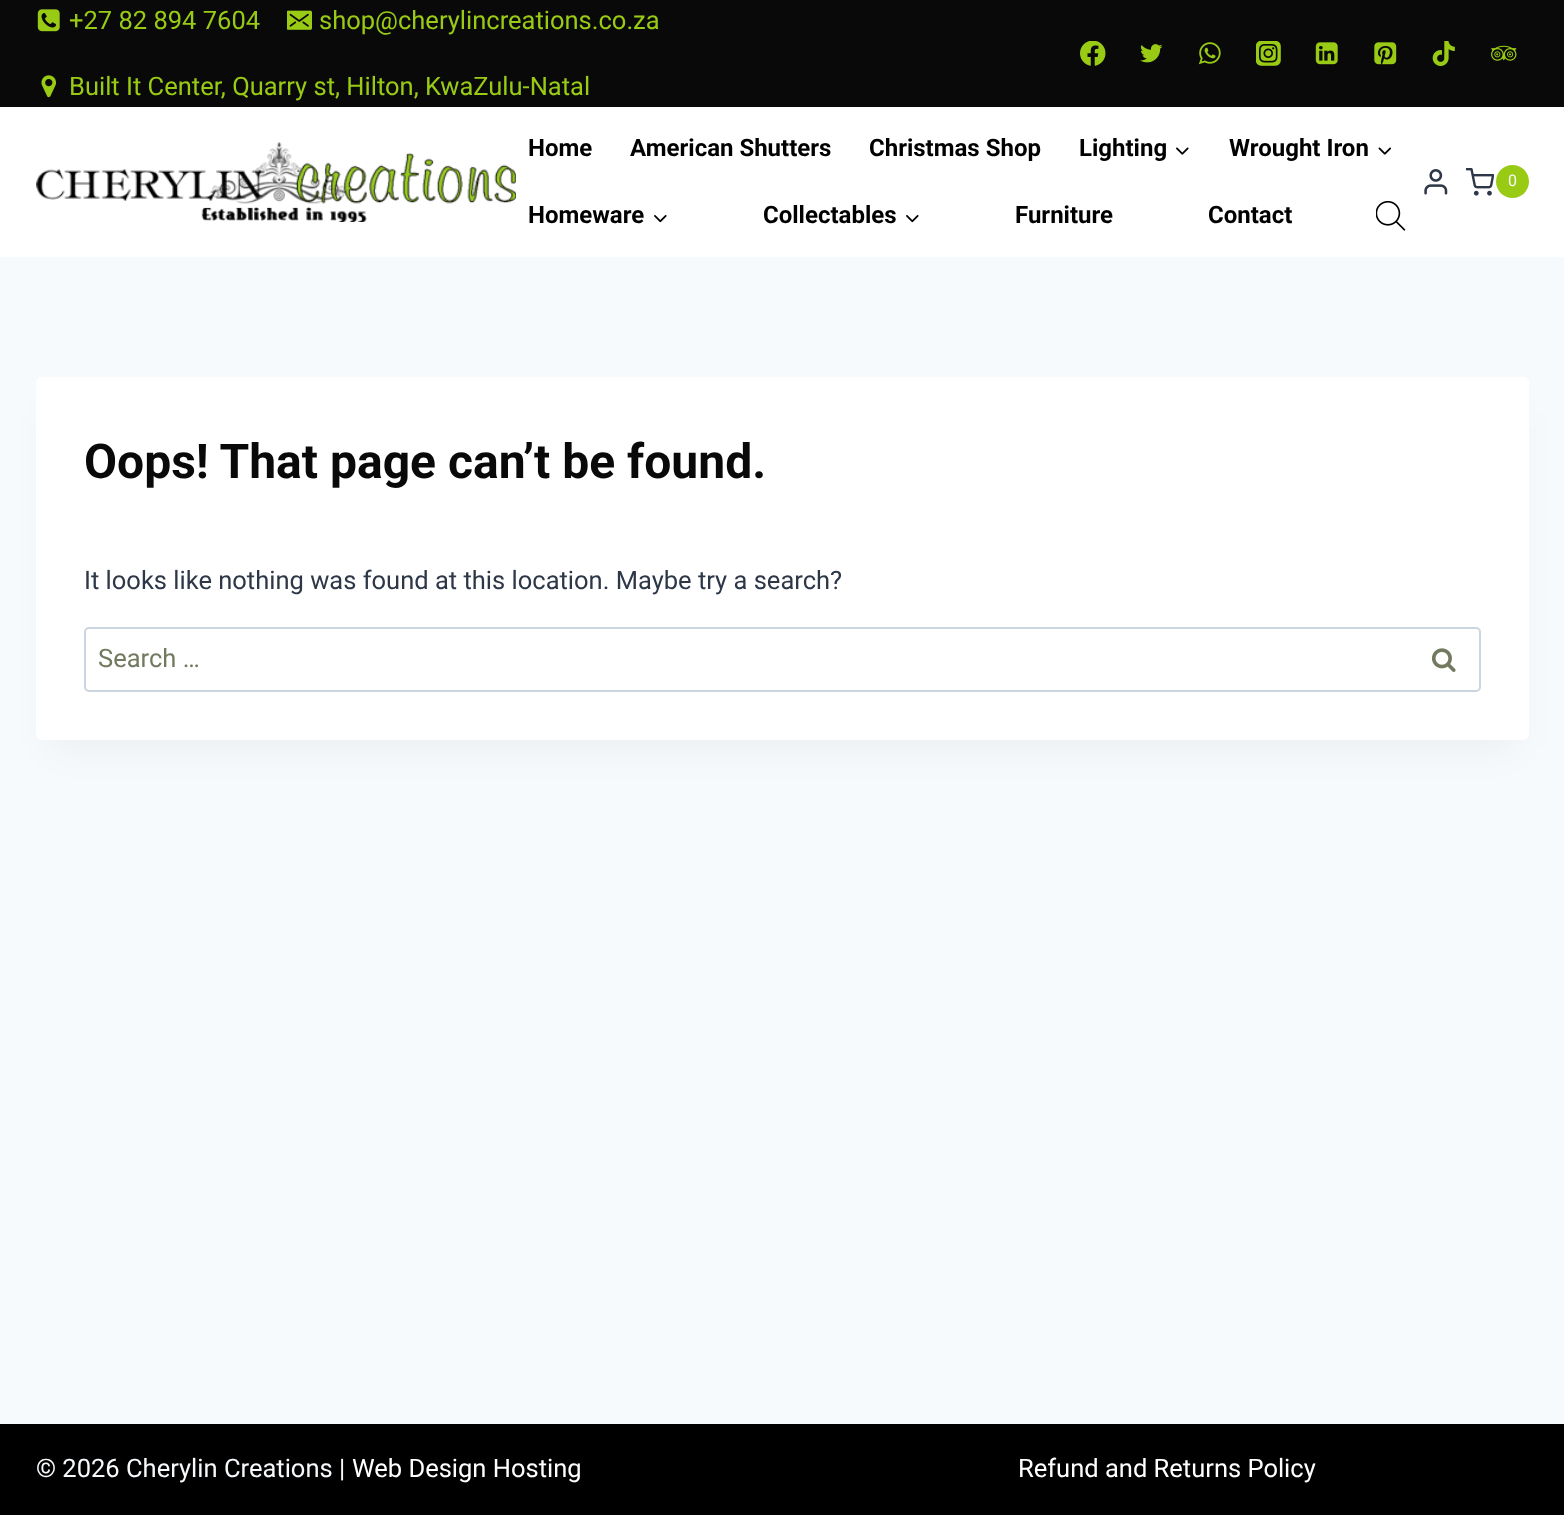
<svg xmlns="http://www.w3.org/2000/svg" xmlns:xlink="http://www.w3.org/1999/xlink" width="1564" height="1515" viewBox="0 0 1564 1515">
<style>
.cls-1{font:25.5px Roboto;fill:#99cb14}
.cls-2{font:bold 24px Roboto;fill:#000000}
.cls-3{font:16px Roboto;fill:#f7fafc}
.cls-4{font:bold 48px Roboto;fill:#090909}
.cls-5{font:25.5px Roboto;fill:#2d3748}
.cls-6{font:25.5px Roboto;fill:#71795e}
.cls-7{font:25.5px Roboto;fill:#f7fafc}
.cls-8{font:25.5px Roboto;fill:#ffffff}
</style>
<rect width="100%" height="100%" fill="#f7fafc"/>
<rect fill="#ffffff" x="0" y="107" width="1564" height="150"/>
<rect fill="#090909" x="0" y="0" width="1564" height="107"/>
<image xlink:href="image0.png" x="37" y="9" width="23" height="23"/>
<image xlink:href="image1.png" x="287" y="10" width="25" height="20"/>
<image xlink:href="image2.png" x="41" y="75" width="15" height="23"/>
<image xlink:href="image3.png" x="1080" y="41" width="26" height="25"/>
<image xlink:href="image4.png" x="1140" y="44" width="23" height="19"/>
<image xlink:href="image5.png" x="1198" y="42" width="23" height="23"/>
<image xlink:href="image6.png" x="1256" y="41" width="25" height="25"/>
<image xlink:href="image7.png" x="1315" y="42" width="23" height="23"/>
<image xlink:href="image8.png" x="1374" y="42" width="23" height="23"/>
<image xlink:href="image9.png" x="1432" y="41" width="23" height="25"/>
<image xlink:href="image10.png" x="1491" y="45" width="26" height="16"/>
<image xlink:href="image11.png" x="36" y="142" width="480" height="80"/>
<image xlink:href="image12.png" x="1176" y="147" width="13" height="8"/>
<image xlink:href="image13.png" x="1378" y="147" width="13" height="8"/>
<image xlink:href="image14.png" x="654" y="215" width="13" height="8"/>
<image xlink:href="image14.png" x="906" y="215" width="13" height="8"/>
<image xlink:href="image15.png" x="1376" y="201" width="30" height="30"/>
<image xlink:href="image16.png" x="1424" y="169" width="24" height="26"/>
<image xlink:href="image17.png" x="1466" y="168" width="28" height="28"/>
<circle fill="#99cb14" cx="1512.5" cy="181.5" r="16.5"/>
<rect fill="#000000" fill-opacity="0.05" filter="blur(19px)" x="51" y="414" width="1463" height="333"/>
<rect fill="#ffffff" x="36" y="377" width="1493" height="363" rx="6"/>
<rect fill="none" stroke="#cbd5e0" stroke-width="2" x="85" y="628" width="1395" height="63" rx="4"/>
<image xlink:href="image18.png" x="1431" y="648" width="25" height="24"/>
<rect fill="#000000" x="0" y="1424" width="1564" height="91"/>
<text class="cls-1" x="69" y="29">+27 82 894 7604</text>
<text class="cls-1" x="319" y="29">shop@cherylincreations.co.za</text>
<text class="cls-1" x="69" y="95">Built It Center, Quarry st, Hilton, KwaZulu-Natal</text>
<text class="cls-2" x="528" y="156">Home</text>
<text class="cls-2" x="630" y="156">American Shutters</text>
<text class="cls-2" x="869" y="156">Christmas Shop</text>
<text class="cls-2" x="1079" y="156">Lighting</text>
<text class="cls-2" x="1229" y="156">Wrought Iron</text>
<text class="cls-2" x="528" y="223">Homeware</text>
<text class="cls-2" x="763" y="223">Collectables</text>
<text class="cls-2" x="1015" y="223">Furniture</text>
<text class="cls-2" x="1208" y="223">Contact</text>
<text class="cls-3" x="1508" y="186">0</text>
<text class="cls-4" x="84" y="478">Oops! That page can’t be found.</text>
<text class="cls-5" x="84" y="589">It looks like nothing was found at this location. Maybe try a search?</text>
<text class="cls-6" x="98" y="667">Search …</text>
<text class="cls-7" x="36" y="1477">© 2026 Cherylin Creations |</text>
<text class="cls-8" x="352" y="1477">Web Design Hosting</text>
<text class="cls-8" x="1018" y="1477">Refund and Returns Policy</text>
</svg>
